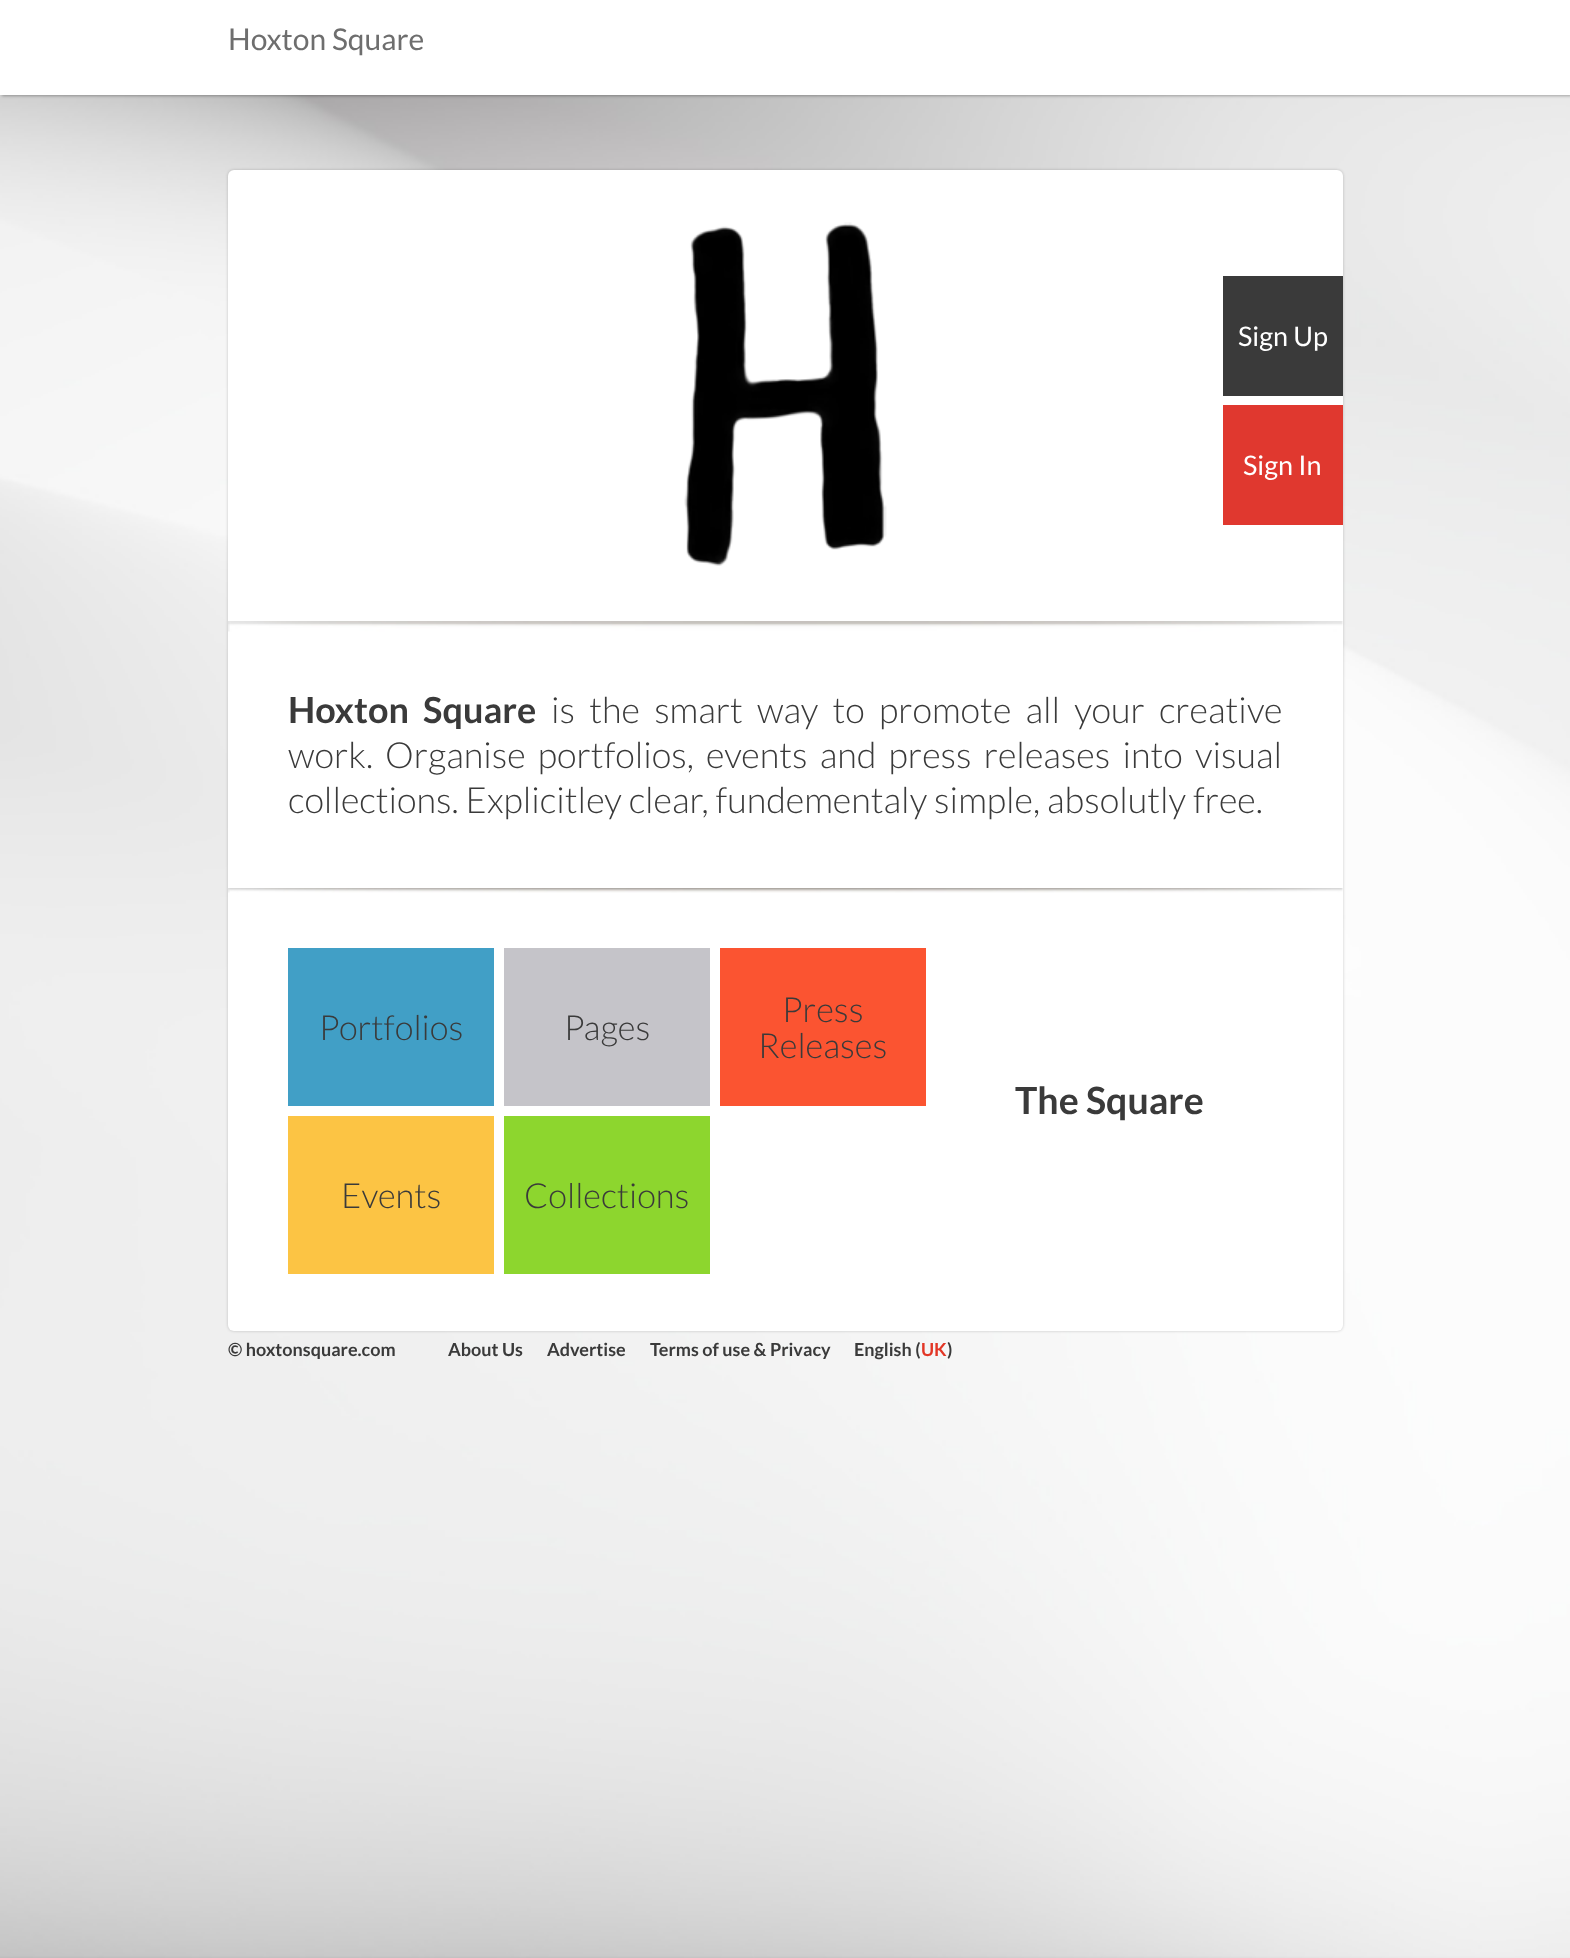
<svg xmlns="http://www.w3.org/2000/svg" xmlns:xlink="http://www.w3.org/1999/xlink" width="1570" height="1958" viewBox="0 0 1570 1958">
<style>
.cls-1{font:30px Lato;fill:#6e6e6e}
.cls-2{font:27px Lato;fill:#ffffff}
.cls-3{font:bold 36px Lato;fill:#3a3a3a}
.cls-4{font:300 36px Lato;fill:#3a3a3a}
.cls-5{font:300 34.5px Lato;fill:#3a3a3a}
.cls-6{font:bold 37.5px Lato;fill:#3a3a3a}
.cls-7{font:bold 18px Lato;fill:#3a3a3a}
.cls-8{font:bold 18px Lato;fill:#e23626}
</style>
<rect width="100%" height="100%" fill="#ffffff"/>
<image xlink:href="image0.png" x="0" y="95" width="1570" height="1863"/>
<rect fill="#000000" fill-opacity="0.3" filter="blur(1.5px)" x="2" y="2" width="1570" height="94"/>
<rect fill="#ffffff" x="0" y="0" width="1570" height="95"/>
<rect fill="#000000" fill-opacity="0.2" filter="blur(1.5px)" x="228" y="170" width="1115" height="1161" rx="6"/>
<rect fill="#ffffff" x="228" y="170" width="1115" height="1161" rx="6"/>
<image xlink:href="image1.png" x="684" y="222" width="203" height="344"/>
<rect fill="#3a3a3a" x="1223" y="276" width="120" height="120"/>
<rect fill="#e0382f" x="1223" y="405" width="120" height="120"/>
<image xlink:href="image2.png" x="228" y="621" width="1115" height="11"/>
<image xlink:href="image3.png" x="228" y="888" width="1115" height="5"/>
<rect fill="#419fc6" x="288" y="948" width="206" height="158"/>
<rect fill="#c5c4c9" x="504" y="948" width="206" height="158"/>
<rect fill="#fb5431" x="720" y="948" width="206" height="158"/>
<rect fill="#fcc444" x="288" y="1116" width="206" height="158"/>
<rect fill="#8dd62e" x="504" y="1116" width="206" height="158"/>
<text class="cls-1" x="228" y="50">Hoxton Square</text>
<text class="cls-2" x="1238" y="346">Sign Up</text>
<text class="cls-2" x="1243" y="475">Sign In</text>
<text class="cls-3" x="288" y="723" word-spacing="7.25">Hoxton Square</text>
<text class="cls-4" x="551" y="723" word-spacing="7.25">is the smart way to promote all your creative</text>
<text class="cls-4" x="288" y="768">work.</text>
<text class="cls-4" x="385" y="768" word-spacing="5.25">Organise portfolios, events and press releases into visual</text>
<text class="cls-4" x="288" y="813">collections. Explicitley clear, fundementaly simple, absolutly free.</text>
<text class="cls-5" x="319" y="1040">Portfolios</text>
<text class="cls-5" x="564" y="1040">Pages</text>
<text class="cls-5" x="782" y="1022">Press</text>
<text class="cls-5" x="758" y="1058">Releases</text>
<text class="cls-5" x="341" y="1208">Events</text>
<text class="cls-5" x="524" y="1208">Collections</text>
<text class="cls-6" x="1015" y="1114">The Square</text>
<text class="cls-7" x="228" y="1356">© hoxtonsquare.com</text>
<text class="cls-7" x="448" y="1356">About Us</text>
<text class="cls-7" x="547" y="1356">Advertise</text>
<text class="cls-7" x="650" y="1356">Terms of use &amp; Privacy</text>
<text class="cls-7" x="854" y="1356">English (</text>
<text class="cls-8" x="921" y="1356">UK</text>
<text class="cls-7" x="947" y="1356">)</text>
</svg>
